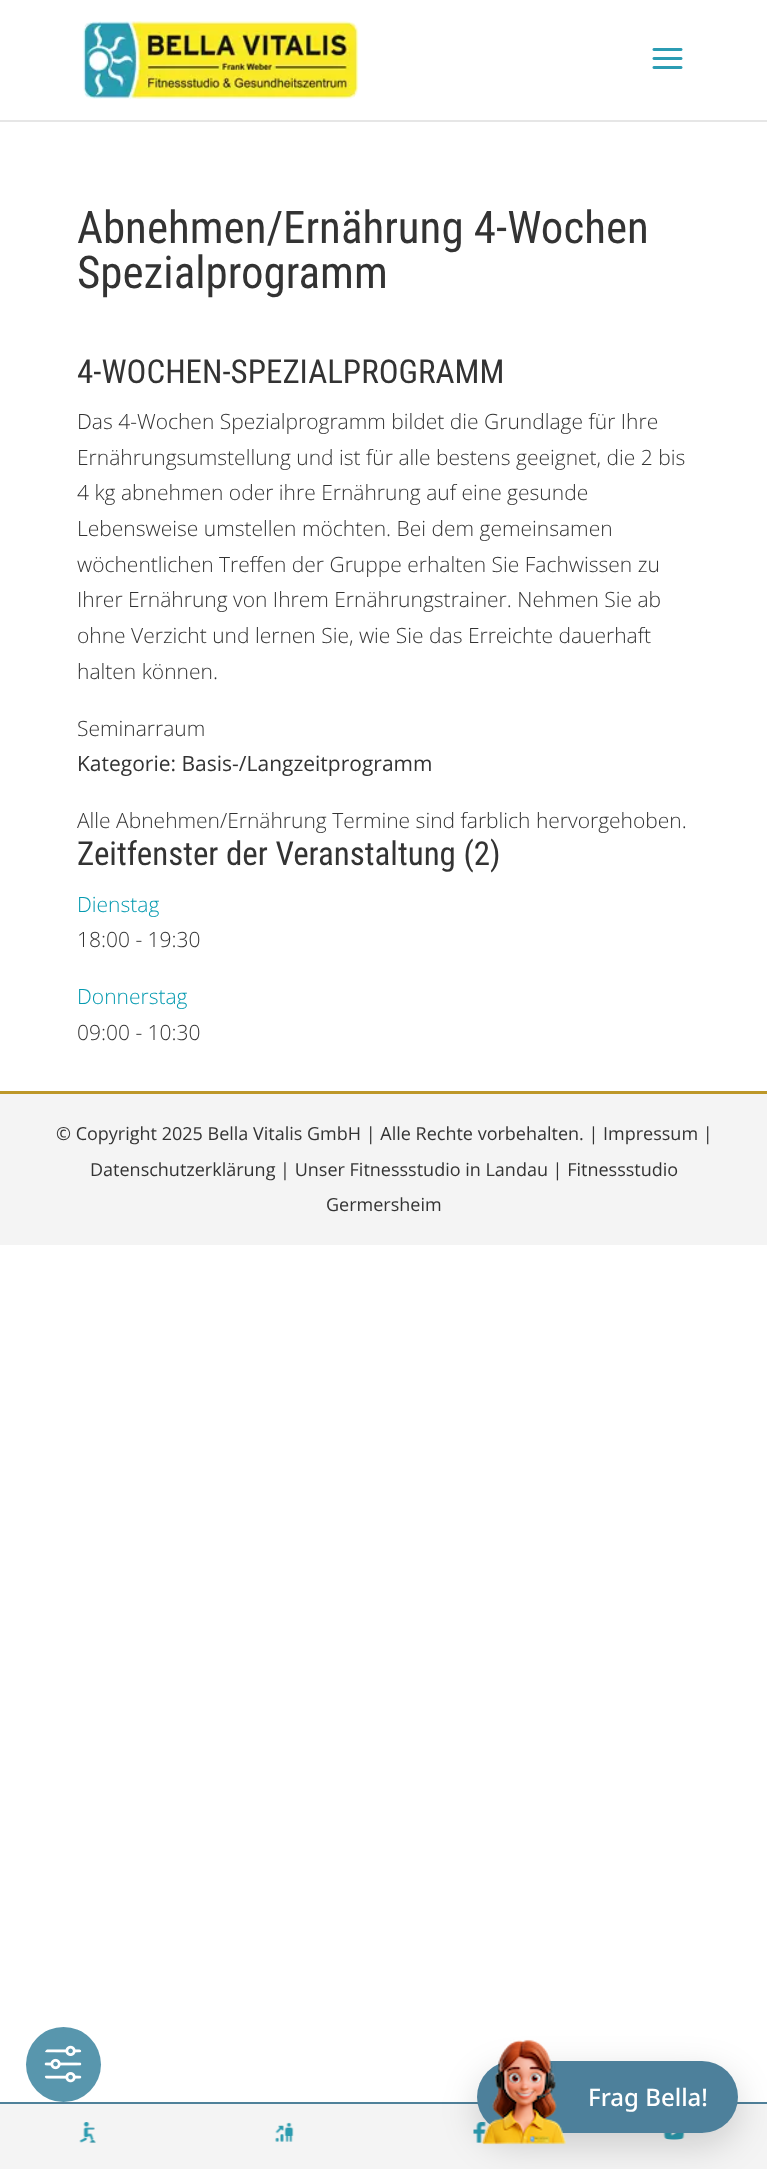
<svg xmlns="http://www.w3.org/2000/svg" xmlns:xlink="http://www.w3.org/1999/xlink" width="767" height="2169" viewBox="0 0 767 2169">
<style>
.cls-1{font:45px Roboto Condensed;fill:#333333}
.cls-2{font:33px Roboto Condensed;fill:#333333}
.cls-3{font:300 21px Open Sans;fill:#333333}
.cls-4{font:21px Open Sans;fill:#333333}
.cls-5{font:300 21px Open Sans;fill:#059ab0}
.cls-6{font:18px Open Sans;fill:#333333}
.cls-7{font:500 24px Noto Sans;fill:#ffffff}
</style>
<rect width="100%" height="100%" fill="#ffffff"/>
<rect fill="#e6e6e6" x="0" y="120" width="767" height="2"/>
<image xlink:href="image0.png" x="83" y="21" width="276" height="78"/>
<image xlink:href="image1.png" x="652" y="48" width="31" height="21"/>
<rect fill="#bd9728" x="0" y="1091" width="767" height="3"/>
<rect fill="#f4f4f4" x="0" y="1094" width="767" height="151"/>
<rect fill="#f4f4f4" x="0" y="2104" width="767" height="65"/>
<rect fill="#4f819a" x="0" y="2102" width="767" height="2"/>
<image xlink:href="image2.png" x="79" y="2122" width="17" height="21"/>
<image xlink:href="image3.png" x="275" y="2122" width="19" height="20"/>
<image xlink:href="image4.png" x="473" y="2122" width="13" height="21"/>
<image xlink:href="image5.png" x="663" y="2133" width="22" height="7"/>
<circle fill="#5896ad" cx="63.5" cy="2064.5" r="37.5"/>
<image xlink:href="image6.png" x="44" y="2045" width="38" height="38"/>
<rect fill="#000000" fill-opacity="0.16" filter="blur(18px)" x="477" y="2073" width="261" height="72" rx="36"/>
<rect fill="#4d809b" x="477" y="2061" width="261" height="72" rx="36"/>
<image xlink:href="image7.png" x="481" y="2039" width="85" height="106"/>
<text class="cls-1"><tspan x="77" y="243">Abnehmen/Ernährung 4-Wochen</tspan><tspan x="77" y="288">Spezialprogramm</tspan></text>
<text class="cls-2" x="77" y="383">4-WOCHEN-SPEZIALPROGRAMM</text>
<text class="cls-3"><tspan x="77" y="429">Das 4-Wochen Spezialprogramm bildet die Grundlage für Ihre</tspan><tspan x="77" y="465">Ernährungsumstellung und ist für alle bestens geeignet, die 2 bis</tspan><tspan x="77" y="500">4 kg abnehmen oder ihre Ernährung auf eine gesunde</tspan><tspan x="77" y="536">Lebensweise umstellen möchten. Bei dem gemeinsamen</tspan><tspan x="77" y="572">wöchentlichen Treffen der Gruppe erhalten Sie Fachwissen zu</tspan><tspan x="77" y="607">Ihrer Ernährung von Ihrem Ernährungstrainer. Nehmen Sie ab</tspan><tspan x="77" y="643">ohne Verzicht und lernen Sie, wie Sie das Erreichte dauerhaft</tspan><tspan x="77" y="679">halten können.</tspan></text>
<text class="cls-3" x="77" y="736">Seminarraum</text>
<text class="cls-4" x="77" y="771">Kategorie: Basis-/Langzeitprogramm</text>
<text class="cls-3" x="77" y="828">Alle Abnehmen/Ernährung Termine sind farblich hervorgehoben.</text>
<text class="cls-2" x="77" y="865">Zeitfenster der Veranstaltung (2)</text>
<text class="cls-5" x="77" y="912">Dienstag</text>
<text class="cls-3" x="77" y="947">18:00 - 19:30</text>
<text class="cls-5" x="77" y="1004">Donnerstag</text>
<text class="cls-3" x="77" y="1040">09:00 - 10:30</text>
<text class="cls-6" x="56" y="1140">© Copyright 2025 Bella Vitalis GmbH | Alle Rechte vorbehalten. | Impressum |</text>
<text class="cls-6" x="90" y="1176">Datenschutzerklärung | Unser Fitnessstudio in Landau | Fitnessstudio</text>
<text class="cls-6" x="326" y="1211">Germersheim</text>
<text class="cls-7" x="588" y="2106">Frag Bella!</text>
</svg>
